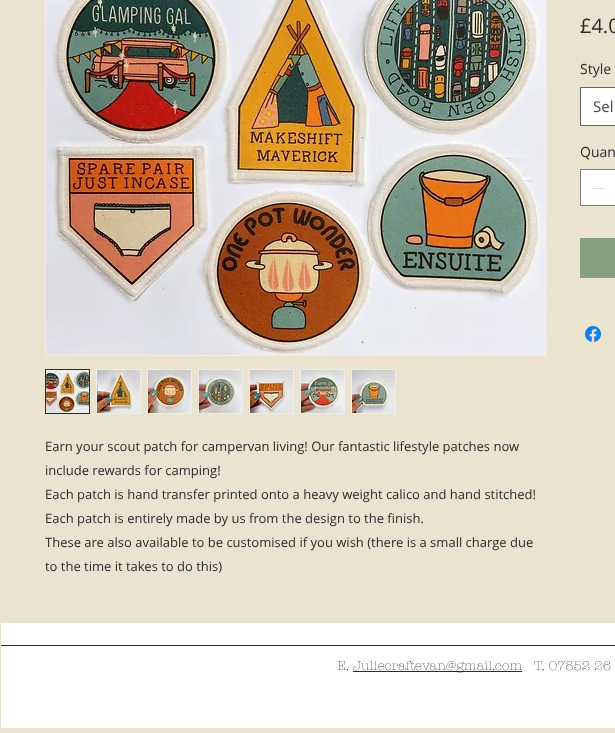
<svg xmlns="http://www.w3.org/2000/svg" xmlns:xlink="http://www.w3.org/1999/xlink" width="615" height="733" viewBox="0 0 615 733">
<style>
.cls-1{font:20px Open Sans;fill:#2c2c2b}
.cls-2{font:14px Open Sans;fill:#2c2c2b}
.cls-3{font:15px Open Sans;fill:#444444}
.cls-4{font:13px Open Sans;fill:#2c2c2b}
.cls-5{font:300 13px 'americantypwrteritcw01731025';fill:#2c2c2b}
</style>
<rect width="100%" height="100%" fill="#e9e3cf"/>
<rect fill="#ffffff" stroke="#666666" x="580.5" y="87.5" width="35" height="38"/>
<rect fill="#ffffff" stroke="#808080" x="580.5" y="169.5" width="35" height="36"/>
<rect fill="#e3e3e3" x="592" y="188" width="13" height="1"/>
<rect fill="#87a180" x="580" y="238" width="35" height="40"/>
<image xlink:href="image0.png" x="585" y="326" width="16" height="16"/>
<rect fill="none" stroke="#ededec" x="45.5" y="-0.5" width="501" height="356"/>
<image xlink:href="image1.png" x="46" y="0" width="500" height="355"/>
<rect fill="none" stroke="#2c2c2b" x="45.5" y="369.5" width="44" height="44"/>
<image xlink:href="image2.png" x="46" y="370" width="43" height="43"/>
<rect fill="#ededec" x="96" y="369" width="45" height="45"/>
<image xlink:href="image3.png" x="97" y="370" width="43" height="43"/>
<rect fill="#ededec" x="147" y="369" width="45" height="45"/>
<image xlink:href="image4.png" x="148" y="370" width="43" height="43"/>
<rect fill="#ededec" x="198" y="369" width="45" height="45"/>
<image xlink:href="image5.png" x="199" y="370" width="43" height="43"/>
<rect fill="#ededec" x="249" y="369" width="45" height="45"/>
<image xlink:href="image6.png" x="250" y="370" width="43" height="43"/>
<rect fill="#ededec" x="300" y="369" width="45" height="45"/>
<image xlink:href="image7.png" x="301" y="370" width="43" height="43"/>
<rect fill="#ededec" x="351" y="369" width="45" height="45"/>
<image xlink:href="image8.png" x="352" y="370" width="43" height="43"/>
<rect fill="#ffffff" x="1" y="623" width="614" height="105"/>
<rect fill="#2c2c2b" x="1" y="645" width="614" height="1"/>
<rect fill="#2c2c2b" x="353" y="671" width="169" height="1"/>
<text class="cls-1" x="580" y="33">£4.0</text>
<text class="cls-2" x="580" y="74">Style</text>
<text class="cls-3" x="593" y="112">Sel</text>
<text class="cls-2" x="580" y="157">Quan</text>
<text class="cls-4"><tspan x="45" y="451">Earn your scout patch for campervan living! Our fantastic lifestyle patches now</tspan><tspan x="45" y="475">include rewards for camping!</tspan><tspan x="45" y="499">Each patch is hand transfer printed onto a heavy weight calico and hand stitched!</tspan><tspan x="45" y="523">Each patch is entirely made by us from the design to the finish.</tspan><tspan x="45" y="547">These are also available to be customised if you wish (there is a small charge due</tspan><tspan x="45" y="571">to the time it takes to do this)</tspan></text>
<text class="cls-5" x="337" y="670">E.</text>
<text class="cls-5" x="353" y="670">Juliecraftevan@gmail.com</text>
<text class="cls-5" x="534" y="670">T. 07852 26</text>
</svg>
